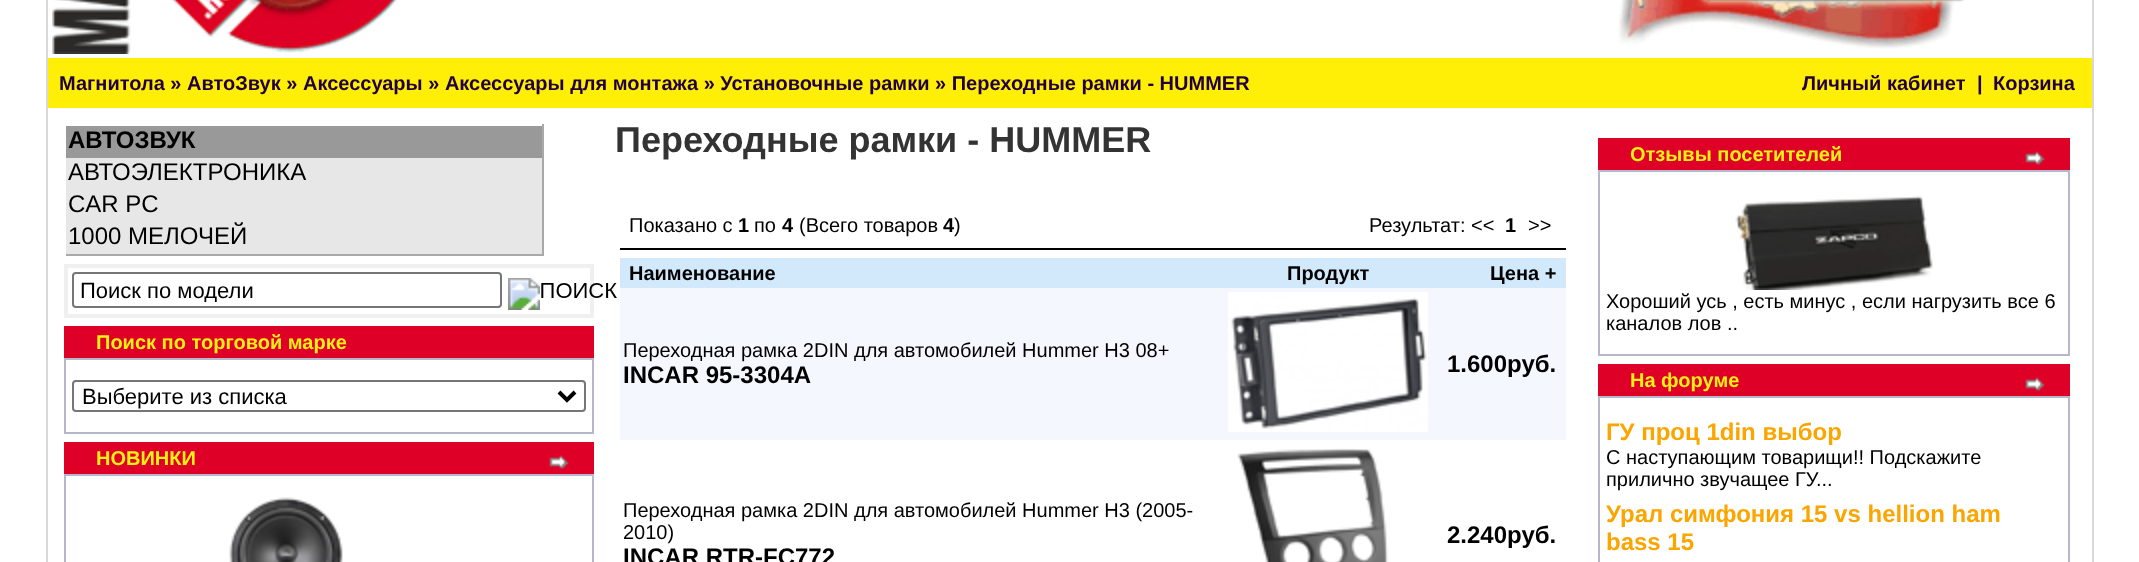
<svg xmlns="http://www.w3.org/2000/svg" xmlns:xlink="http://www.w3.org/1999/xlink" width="2139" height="562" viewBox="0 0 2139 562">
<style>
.cls-1{font:bold 20px Liberation Sans;fill:#200040}
.cls-2{font:bold 24px Liberation Sans;fill:#000000}
.cls-3{font:24px Liberation Sans;fill:#000000}
.cls-4{font:22px Liberation Sans;fill:#000000}
.cls-5{font:bold 20px Liberation Sans;fill:#fff016}
.cls-6{font:bold 36px Liberation Sans;fill:#333333}
.cls-7{font:20px Liberation Sans;fill:#000000}
.cls-8{font:bold 20px Liberation Sans;fill:#000000}
.cls-9{font:bold 24px Liberation Sans;fill:#fba500}
</style>
<defs>
<clipPath id="clip1"><rect x="80" y="278" width="414" height="24"/></clipPath>
</defs>
<rect width="100%" height="100%" fill="#ffffff"/>
<rect fill="#d9d9d9" x="2092" y="0" width="2" height="562"/>
<rect fill="#d9d9d9" x="46" y="0" width="2" height="562"/>
<image xlink:href="image0.png" x="52" y="0" width="79" height="54"/>
<image xlink:href="image1.png" x="172" y="0" width="225" height="53"/>
<image xlink:href="image2.png" x="1618" y="0" width="347" height="49"/>
<rect fill="#ffef07" x="48" y="58" width="2044" height="50"/>
<rect fill="#e6e7e6" x="66" y="158" width="476" height="96"/>
<rect fill="#a9a9a9" x="542" y="124" width="2" height="132"/>
<rect fill="#a9a9a9" x="64" y="254" width="480" height="2"/>
<rect fill="#fdfefd" x="64" y="254" width="2" height="2"/>
<rect fill="#999999" x="66" y="126" width="476" height="32"/>
<rect fill="none" stroke="#f0f0f0" stroke-width="4" x="66" y="266" width="526" height="50"/>
<rect fill="none" stroke="#767676" stroke-width="2" x="73" y="273" width="428" height="34" rx="3"/>
<image xlink:href="image3.png" x="508" y="278" width="109" height="32"/>
<rect fill="#de0026" x="64" y="326" width="530" height="32"/>
<rect fill="#b6b7cb" x="64" y="358" width="530" height="76"/>
<rect fill="#ffffff" x="66" y="360" width="526" height="72"/>
<rect fill="none" stroke="#767676" stroke-width="2" x="73" y="381" width="512" height="30" rx="3"/>
<path fill="none" stroke="#000000" stroke-width="4" d="M559 392L567 400L575 392"/>
<rect fill="#de0026" x="64" y="442" width="530" height="32"/>
<image xlink:href="image4.png" x="549" y="455" width="20" height="14"/>
<rect fill="#b6b7cb" x="64" y="474" width="530" height="88"/>
<rect fill="#ffffff" x="66" y="476" width="526" height="86"/>
<image xlink:href="image5.png" x="229" y="497" width="114" height="65"/>
<rect fill="#000000" x="620" y="248" width="946" height="2"/>
<rect fill="#d2e9fb" x="620" y="258" width="946" height="30"/>
<rect fill="#f4f7fd" x="620" y="288" width="946" height="152"/>
<image xlink:href="image6.png" x="1228" y="292" width="200" height="140"/>
<image xlink:href="image7.png" x="1237" y="448" width="152" height="114"/>
<rect fill="#de0026" x="1598" y="138" width="472" height="32"/>
<image xlink:href="image4.png" x="2025" y="151" width="20" height="14"/>
<rect fill="#b6b7cb" x="1598" y="170" width="472" height="186"/>
<rect fill="#ffffff" x="1600" y="172" width="468" height="182"/>
<image xlink:href="image8.png" x="1735" y="195" width="198" height="95"/>
<rect fill="#de0026" x="1598" y="364" width="472" height="32"/>
<image xlink:href="image4.png" x="2025" y="377" width="20" height="14"/>
<rect fill="#b6b7cb" x="1598" y="396" width="472" height="166"/>
<rect fill="#ffffff" x="1600" y="398" width="468" height="164"/>
<text class="cls-1" x="59" y="90">Магнитола » АвтоЗвук » Аксессуары » Аксессуары для монтажа » Установочные рамки » Переходные рамки - HUMMER</text>
<text class="cls-1" x="1802" y="90">Личный кабинет</text>
<text class="cls-1" x="1977" y="90">|</text>
<text class="cls-1" x="1993" y="90">Корзина</text>
<text class="cls-2" x="68" y="148">АВТОЗВУК</text>
<text class="cls-3"><tspan x="68" y="180">АВТОЭЛЕКТРОНИКА</tspan><tspan x="68" y="212">CAR PC</tspan><tspan x="68" y="244">1000 МЕЛОЧЕЙ</tspan></text>
<g clip-path="url(#clip1)">
<text class="cls-4" x="80" y="298">Поиск по модели</text>
</g>
<text class="cls-5" x="96" y="349">Поиск по торговой марке</text>
<text class="cls-4" x="82" y="404">Выберите из списка</text>
<text class="cls-5" x="96" y="465">НОВИНКИ</text>
<text class="cls-6" x="615" y="152">Переходные рамки - HUMMER</text>
<text class="cls-7" x="629" y="232">Показано с</text>
<text class="cls-8" x="738" y="232">1</text>
<text class="cls-7" x="754" y="232">по</text>
<text class="cls-8" x="782" y="232">4</text>
<text class="cls-7" x="799" y="232">(Всего товаров</text>
<text class="cls-8" x="943" y="232">4</text>
<text class="cls-7" x="954" y="232">)</text>
<text class="cls-7" x="1369" y="232">Результат: &lt;&lt;</text>
<text class="cls-8" x="1505" y="232">1</text>
<text class="cls-7" x="1528" y="232">&gt;&gt;</text>
<text class="cls-8" x="629" y="280">Наименование</text>
<text class="cls-8" x="1287" y="280">Продукт</text>
<text class="cls-8" x="1490" y="280">Цена +</text>
<text class="cls-7" x="623" y="357">Переходная рамка 2DIN для автомобилей Hummer H3 08+</text>
<text class="cls-2" x="623" y="383">INCAR 95-3304A</text>
<text class="cls-2" x="1447" y="372">1.600руб.</text>
<text class="cls-7"><tspan x="623" y="517">Переходная рамка 2DIN для автомобилей Hummer H3 (2005-</tspan><tspan x="623" y="539">2010)</tspan></text>
<text class="cls-2" x="623" y="565">INCAR RTR-FC772</text>
<text class="cls-2" x="1447" y="543">2.240руб.</text>
<text class="cls-5" x="1630" y="161">Отзывы посетителей</text>
<text class="cls-7"><tspan x="1606" y="308">Хороший усь , есть минус , если нагрузить все 6</tspan><tspan x="1606" y="330">каналов лов ..</tspan></text>
<text class="cls-5" x="1630" y="387">На форуме</text>
<text class="cls-9" x="1606" y="440">ГУ проц 1din выбор</text>
<text class="cls-7"><tspan x="1606" y="464">С наступающим товарищи!! Подскажите</tspan><tspan x="1606" y="486">прилично звучащее ГУ...</tspan></text>
<text class="cls-9"><tspan x="1606" y="522">Урал симфония 15 vs hellion ham</tspan><tspan x="1606" y="550">bass 15</tspan></text>
</svg>
